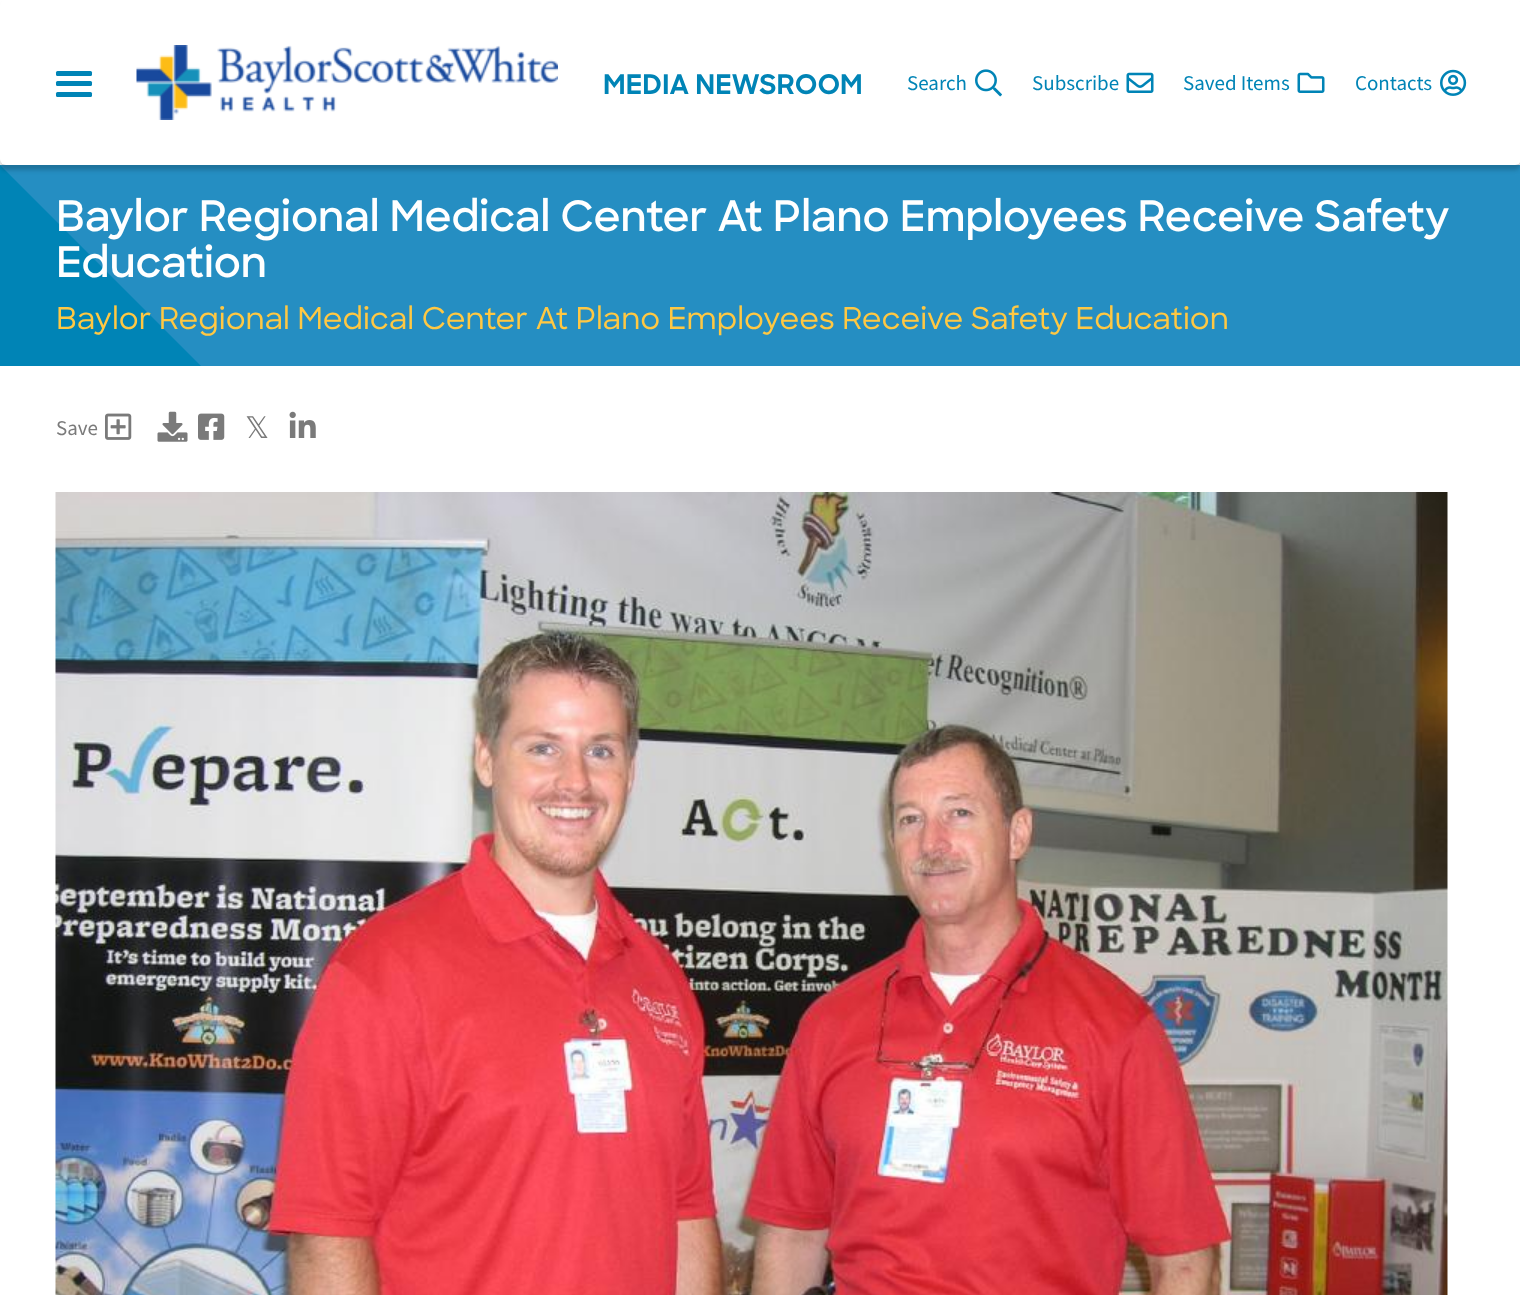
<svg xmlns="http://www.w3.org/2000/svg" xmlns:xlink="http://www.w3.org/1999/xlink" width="1520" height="1295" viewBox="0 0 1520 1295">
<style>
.cls-1{font:bold 27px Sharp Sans;fill:#0084b6}
.cls-2{font:21px Source Sans Pro;fill:#0084b6}
.cls-3{font:600 42px Sharp Sans;fill:#ffffff}
.cls-4{font:500 30px Sharp Sans;fill:#ffc843}
.cls-5{font:21px Source Sans Pro;fill:#7a7a7a}
.cls-6{font:30px DejaVu Sans;fill:#7a7a7a}
</style>
<defs>
<clipPath id="clip1"><rect x="0" y="165" width="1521" height="201"/></clipPath>
</defs>
<rect width="100%" height="100%" fill="#ffffff"/>
<rect fill="#258ec2" x="0" y="165" width="1520" height="201"/>
<g clip-path="url(#clip1)">
<path fill="#0084b6" d="M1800 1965H0V165Z"/>
</g>
<rect fill="#000000" fill-opacity="0.2" filter="blur(2px)" x="0" y="5" width="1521" height="165" rx="6"/>
<rect fill="#ffffff" x="0" y="0" width="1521" height="165" rx="6"/>
<rect fill="#0084b6" x="56" y="71" width="36" height="5" rx="1.5"/>
<rect fill="#0084b6" x="56" y="81" width="36" height="5" rx="1.5"/>
<rect fill="#0084b6" x="56" y="92" width="36" height="5" rx="1.5"/>
<image xlink:href="image0.png" x="136" y="45" width="422" height="75"/>
<image xlink:href="image1.png" x="975" y="69" width="27" height="28"/>
<image xlink:href="image2.png" x="1126" y="72" width="28" height="21"/>
<image xlink:href="image3.png" x="1297" y="72" width="28" height="21"/>
<image xlink:href="image4.png" x="1440" y="69" width="27" height="27"/>
<image xlink:href="image5.png" x="105" y="413" width="27" height="27"/>
<image xlink:href="image6.png" x="157" y="411" width="31" height="31"/>
<image xlink:href="image7.png" x="198" y="413" width="27" height="27"/>
<image xlink:href="image8.png" x="289" y="411" width="27" height="27"/>
<image xlink:href="image9.png" x="55" y="492" width="1393" height="803"/>
<text class="cls-1" x="603" y="94">MEDIA NEWSROOM</text>
<text class="cls-2" x="907" y="90">Search</text>
<text class="cls-2" x="1032" y="90">Subscribe</text>
<text class="cls-2" x="1183" y="90">Saved Items</text>
<text class="cls-2" x="1355" y="90">Contacts</text>
<text class="cls-3"><tspan x="56" y="231">Baylor Regional Medical Center At Plano Employees Receive Safety</tspan><tspan x="56" y="277">Education</tspan></text>
<text class="cls-4" x="56" y="329">Baylor Regional Medical Center At Plano Employees Receive Safety Education</text>
<text class="cls-5" x="56" y="435">Save</text>
<text class="cls-6" x="245" y="438">𝕏</text>
</svg>
